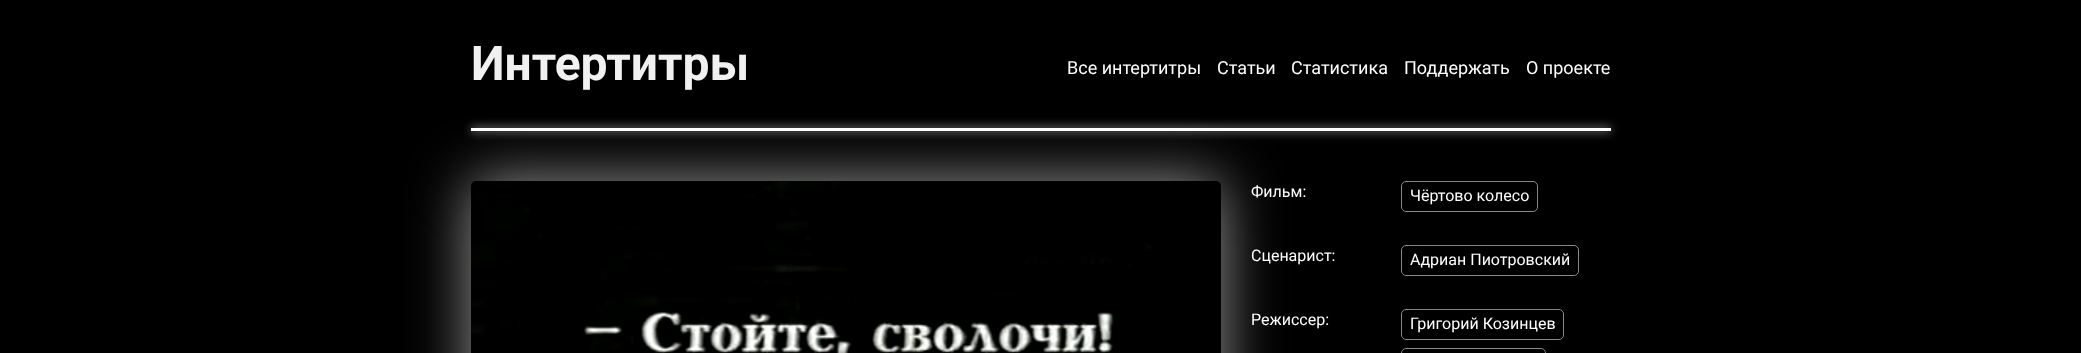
<svg xmlns="http://www.w3.org/2000/svg" xmlns:xlink="http://www.w3.org/1999/xlink" width="2081" height="353" viewBox="0 0 2081 353">
<style>
.cls-1{font:bold 48px Roboto;fill:#f1f1f1}
.cls-2{font:18px Roboto;fill:#ffffff}
.cls-3{font:16px Roboto;fill:#ffffff}
</style>
<rect width="100%" height="100%" fill="#000000"/>
<rect fill="#ffffff" fill-opacity="0.8" filter="blur(5px)" x="471" y="128" width="1140" height="3"/>
<rect fill="#ffffff" x="471" y="128" width="1140" height="3"/>
<rect fill="#ffffff" fill-opacity="0.6" filter="blur(30px)" x="471" y="181" width="750" height="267" rx="5"/>
<image xlink:href="image0.png" x="471" y="181" width="750" height="172"/>
<rect fill="none" stroke="#888888" x="1401.5" y="181.5" width="136" height="30" rx="4.5"/>
<rect fill="none" stroke="#888888" x="1401.5" y="245.5" width="177" height="30" rx="4.5"/>
<rect fill="none" stroke="#888888" x="1401.5" y="309.5" width="162" height="30" rx="4.5"/>
<rect fill="none" stroke="#888888" x="1401.5" y="348.5" width="144" height="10" rx="4.5"/>
<text class="cls-1" x="471" y="80">Интертитры</text>
<text class="cls-2" x="1067" y="74">Все интертитры</text>
<text class="cls-2" x="1217" y="74">Статьи</text>
<text class="cls-2" x="1291" y="74">Статистика</text>
<text class="cls-2" x="1404" y="74">Поддержать</text>
<text class="cls-2" x="1526" y="74">О проекте</text>
<text class="cls-3" x="1251" y="197">Фильм:</text>
<text class="cls-3" x="1410" y="201">Чёртово колесо</text>
<text class="cls-3" x="1251" y="261">Сценарист:</text>
<text class="cls-3" x="1410" y="265">Адриан Пиотровский</text>
<text class="cls-3" x="1251" y="325">Режиссер:</text>
<text class="cls-3" x="1410" y="329">Григорий Козинцев</text>
</svg>
